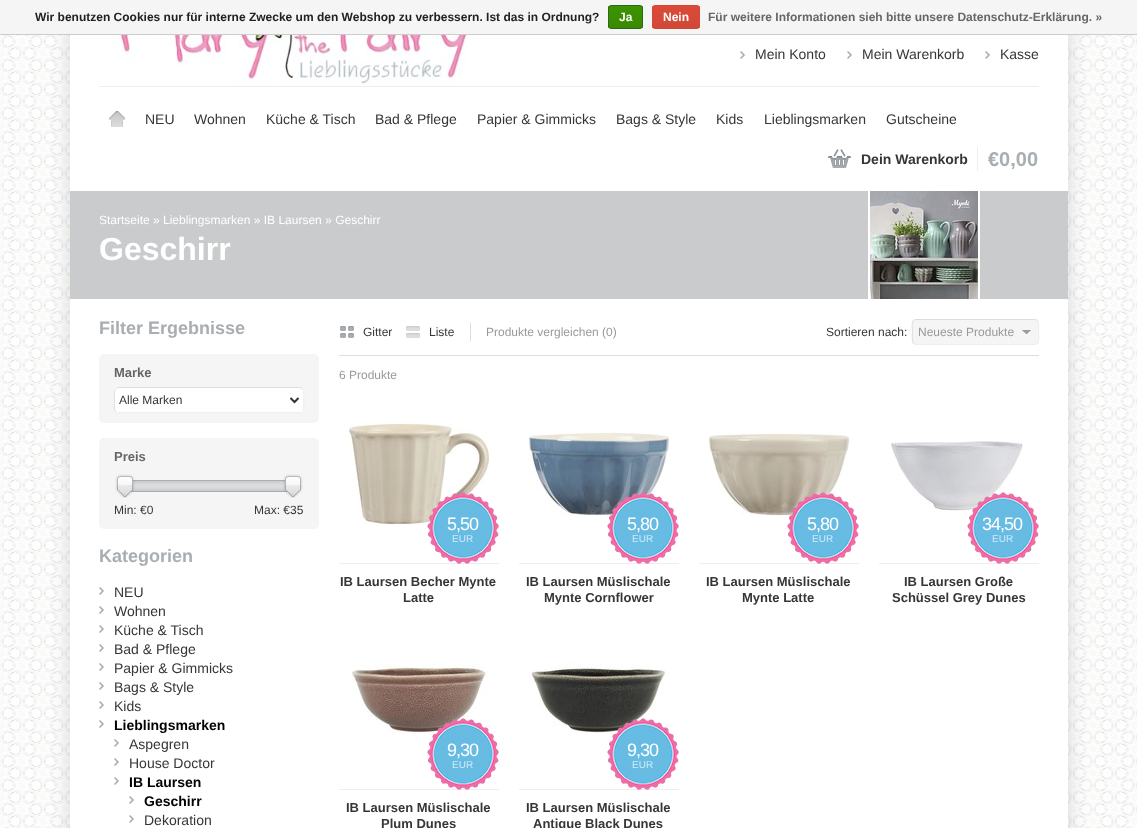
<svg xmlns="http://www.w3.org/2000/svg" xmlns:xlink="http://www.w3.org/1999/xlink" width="1137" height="828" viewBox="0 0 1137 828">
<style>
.cls-1{font:bold 12px Liberation Sans;fill:#222222}
.cls-2{font:bold 12px Liberation Sans;fill:#ffffff}
.cls-3{font:bold 12px Liberation Sans;fill:#666666}
.cls-4{font:14px Liberation Sans;fill:#383538}
.cls-5{font:bold 14px Liberation Sans;fill:#383538}
.cls-6{font:bold 20px Liberation Sans;fill:#a8aeb1}
.cls-7{font:12px Liberation Sans;fill:#ffffff}
.cls-8{font:bold 32px Liberation Sans;fill:#ffffff}
.cls-9{font:bold 18px Liberation Sans;fill:#a8aeb1}
.cls-10{font:bold 13px Liberation Sans;fill:#666666}
.cls-11{font:12px Liberation Sans;fill:#383538}
.cls-12{font:bold 14px Liberation Sans;fill:#000000}
.cls-13{font:12px Liberation Sans;fill:#999999}
.cls-14{font:18px Liberation Sans;letter-spacing:-1px;fill:#ffffff}
.cls-15{font:10px Liberation Sans;fill:#d1ebf7}
.cls-16{font:bold 13px Liberation Sans;fill:#383538}
</style>
<defs>
<clipPath id="clip1"><rect x="608" y="5" width="35" height="24" rx="3"/></clipPath>
<linearGradient id="g1" gradientUnits="userSpaceOnUse" x1="626" y1="6" x2="626" y2="28"><stop offset="0" stop-color="#3c9300"/><stop offset="1" stop-color="#398a00"/></linearGradient>
<clipPath id="clip2"><rect x="652" y="5" width="48" height="24" rx="3"/></clipPath>
<linearGradient id="g2" gradientUnits="userSpaceOnUse" x1="676" y1="6" x2="676" y2="28"><stop offset="0" stop-color="#dc4a38"/><stop offset="1" stop-color="#d14836"/></linearGradient>
</defs>
<rect width="100%" height="100%" fill="#ffffff"/>
<image xlink:href="image0.png" x="0" y="35" width="1137" height="793"/>
<rect fill="#000000" fill-opacity="0.15" filter="blur(10px)" x="70" y="-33" width="998" height="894" rx="3"/>
<rect fill="#f5f5f5" x="0" y="0" width="1137" height="34"/>
<rect fill="#cccccc" x="0" y="34" width="1137" height="1"/>
<g clip-path="url(#clip1)">
<rect fill="url(#g1)" x="608" y="6" width="35" height="22"/>
</g>
<rect fill="none" stroke="#29691d" x="608.5" y="5.5" width="34" height="23" rx="2.5"/>
<g clip-path="url(#clip2)">
<rect fill="url(#g2)" x="652" y="6" width="48" height="22"/>
</g>
<rect fill="none" stroke="#d14836" x="652.5" y="5.5" width="47" height="23" rx="2.5"/>
<rect fill="#ffffff" x="70" y="35" width="998" height="793"/>
<image xlink:href="image1.png" x="112" y="35" width="367" height="51"/>
<rect fill="#a8aeb1" x="740" y="51" width="6" height="8"/>
<image xlink:href="image2.png" x="740" y="46" width="86" height="16"/>
<rect fill="#a8aeb1" x="847" y="51" width="5" height="8"/>
<image xlink:href="image3.png" x="847" y="46" width="117" height="16"/>
<rect fill="#a8aeb1" x="985" y="51" width="6" height="8"/>
<image xlink:href="image4.png" x="985" y="46" width="54" height="16"/>
<rect fill="#eeeeee" x="99" y="86" width="940" height="1"/>
<rect fill="#dddddd" x="109" y="111" width="16" height="16"/>
<image xlink:href="image5.png" x="99" y="103" width="36" height="32"/>
<rect fill="#a8aeb1" x="828" y="149" width="23" height="19"/>
<image xlink:href="image6.png" x="827" y="147" width="24" height="24"/>
<rect fill="#eeeeee" x="977" y="147" width="1" height="24"/>
<rect fill="#cacbcc" x="70" y="191" width="998" height="108"/>
<rect fill="#ffffff" x="868" y="191" width="112" height="108"/>
<image xlink:href="image7.png" x="870" y="191" width="108" height="108"/>
<rect fill="#f5f5f5" x="99" y="354" width="220" height="69" rx="5"/>
<rect fill="#ffffff" x="114" y="387" width="190" height="26" rx="4"/>
<path fill="none" stroke="#eeeeee" d="M302.5 388.5C304.5 390.5 303.5 397.5 303.5 400C303.5 402.5 304.5 409.5 302 411.5L300.5 412.5H118L115.5 411.5"/>
<path fill="none" stroke="#dddddd" d="M115.5 411.5C113.5 409.5 114.5 402.5 114.5 400C114.5 397.5 113.5 390.5 116 388.5L117.5 387.5H300L302.5 388.5"/>
<path fill="none" stroke="#333333" stroke-width="2" d="M290.5 398L294.5 402L298.5 398"/>
<rect fill="#f5f5f5" x="99" y="438" width="220" height="91" rx="5"/>
<rect fill="#dcdedf" x="131" y="481" width="156" height="10"/>
<image xlink:href="image10.png" x="131" y="481" width="156" height="10"/>
<rect fill="none" stroke="#a8aeb1" x="124.5" y="480.5" width="169" height="11"/>
<image xlink:href="image8.png" x="115" y="474" width="20" height="24"/>
<image xlink:href="image9.png" x="283" y="474" width="20" height="24"/>
<rect fill="#a8aeb1" x="99" y="587" width="5" height="8"/>
<image xlink:href="image11.png" x="99" y="582" width="15" height="15"/>
<rect fill="#a8aeb1" x="99" y="606" width="5" height="8"/>
<image xlink:href="image11.png" x="99" y="601" width="15" height="15"/>
<rect fill="#a8aeb1" x="99" y="625" width="5" height="8"/>
<image xlink:href="image11.png" x="99" y="620" width="15" height="15"/>
<rect fill="#a8aeb1" x="99" y="644" width="5" height="8"/>
<image xlink:href="image11.png" x="99" y="639" width="15" height="15"/>
<rect fill="#a8aeb1" x="99" y="663" width="5" height="8"/>
<image xlink:href="image11.png" x="99" y="658" width="15" height="15"/>
<rect fill="#a8aeb1" x="99" y="682" width="5" height="8"/>
<image xlink:href="image11.png" x="99" y="677" width="15" height="15"/>
<rect fill="#a8aeb1" x="99" y="701" width="5" height="8"/>
<image xlink:href="image11.png" x="99" y="696" width="15" height="15"/>
<rect fill="#a8aeb1" x="99" y="720" width="5" height="8"/>
<image xlink:href="image11.png" x="99" y="715" width="15" height="15"/>
<rect fill="#a8aeb1" x="114" y="739" width="5" height="8"/>
<image xlink:href="image11.png" x="114" y="734" width="15" height="15"/>
<rect fill="#a8aeb1" x="114" y="758" width="5" height="8"/>
<image xlink:href="image11.png" x="114" y="753" width="15" height="15"/>
<rect fill="#a8aeb1" x="114" y="777" width="5" height="8"/>
<image xlink:href="image11.png" x="114" y="772" width="15" height="15"/>
<rect fill="#a8aeb1" x="129" y="796" width="5" height="8"/>
<image xlink:href="image11.png" x="129" y="791" width="15" height="15"/>
<rect fill="#a8aeb1" x="129" y="815" width="5" height="8"/>
<image xlink:href="image11.png" x="129" y="810" width="15" height="15"/>
<rect fill="#dddddd" x="339" y="355" width="700" height="1"/>
<rect fill="#a8aeb1" x="340" y="326" width="14" height="12"/>
<image xlink:href="image12.png" x="339" y="324" width="16" height="16"/>
<rect fill="#dddddd" x="406" y="326" width="14" height="12"/>
<image xlink:href="image13.png" x="405" y="324" width="16" height="16"/>
<rect fill="#dddddd" x="470" y="323" width="1" height="18"/>
<rect fill="#f5f5f5" x="912" y="319" width="127" height="26" rx="4"/>
<image xlink:href="image14.png" x="1022" y="330" width="9" height="4"/>
<path fill="none" stroke="#eeeeee" d="M1037.5 320.5C1039.5 322.5 1038.5 329.5 1038.5 332C1038.5 334.5 1040.5 344.5 1035 344.5H916L913.5 343.5"/>
<path fill="none" stroke="#dddddd" d="M913.5 343.5C911.5 341.5 912.5 334.5 912.5 332C912.5 329.5 910.5 319.5 916 319.5H1035L1037.5 320.5"/>
<image xlink:href="image15.png" x="349" y="421" width="140" height="104"/>
<rect fill="#eeeeee" x="339" y="563" width="160" height="1"/>
<image xlink:href="image16.png" x="427" y="492" width="72" height="72"/>
<image xlink:href="image17.png" x="529" y="432" width="140" height="84"/>
<rect fill="#eeeeee" x="519" y="563" width="160" height="1"/>
<image xlink:href="image18.png" x="607" y="492" width="72" height="72"/>
<image xlink:href="image19.png" x="709" y="432" width="140" height="84"/>
<rect fill="#eeeeee" x="699" y="563" width="160" height="1"/>
<image xlink:href="image20.png" x="787" y="492" width="72" height="72"/>
<image xlink:href="image21.png" x="890" y="441" width="133" height="70"/>
<rect fill="#eeeeee" x="879" y="563" width="160" height="1"/>
<image xlink:href="image22.png" x="967" y="492" width="72" height="72"/>
<image xlink:href="image23.png" x="351" y="662" width="138" height="72"/>
<rect fill="#eeeeee" x="339" y="789" width="160" height="1"/>
<image xlink:href="image24.png" x="427" y="718" width="72" height="72"/>
<image xlink:href="image25.png" x="529" y="662" width="138" height="72"/>
<rect fill="#eeeeee" x="519" y="789" width="160" height="1"/>
<image xlink:href="image26.png" x="607" y="718" width="72" height="72"/>
<text class="cls-1" x="35" y="21">Wir benutzen Cookies nur für interne Zwecke um den Webshop zu verbessern. Ist das in Ordnung?</text>
<text class="cls-2" x="619" y="21">Ja</text>
<text class="cls-2" x="663" y="21">Nein</text>
<text class="cls-3" x="708" y="21">Für weitere Informationen sieh bitte unsere Datenschutz-Erklärung. »</text>
<text class="cls-4" x="755" y="59">Mein Konto</text>
<text class="cls-4" x="862" y="59">Mein Warenkorb</text>
<text class="cls-4" x="1000" y="59">Kasse</text>
<text class="cls-4" x="145" y="124">NEU</text>
<text class="cls-4" x="194" y="124">Wohnen</text>
<text class="cls-4" x="266" y="124">Küche &amp; Tisch</text>
<text class="cls-4" x="375" y="124">Bad &amp; Pflege</text>
<text class="cls-4" x="477" y="124">Papier &amp; Gimmicks</text>
<text class="cls-4" x="616" y="124">Bags &amp; Style</text>
<text class="cls-4" x="716" y="124">Kids</text>
<text class="cls-4" x="764" y="124">Lieblingsmarken</text>
<text class="cls-4" x="886" y="124">Gutscheine</text>
<text class="cls-5" x="861" y="164">Dein Warenkorb</text>
<text class="cls-6" x="988" y="166">€0,00</text>
<text class="cls-7" x="99" y="224">Startseite » Lieblingsmarken » IB Laursen » Geschirr</text>
<text class="cls-8" x="99" y="260">Geschirr</text>
<text class="cls-9" x="99" y="334">Filter Ergebnisse</text>
<text class="cls-10" x="114" y="377">Marke</text>
<text class="cls-11" x="119" y="404">Alle Marken</text>
<text class="cls-10" x="114" y="461">Preis</text>
<text class="cls-11" x="114" y="514">Min: €0</text>
<text class="cls-11" x="254" y="514">Max: €35</text>
<text class="cls-9" x="99" y="562">Kategorien</text>
<text class="cls-4"><tspan x="114" y="597">NEU</tspan><tspan x="114" y="616">Wohnen</tspan><tspan x="114" y="635">Küche &amp; Tisch</tspan><tspan x="114" y="654">Bad &amp; Pflege</tspan><tspan x="114" y="673">Papier &amp; Gimmicks</tspan><tspan x="114" y="692">Bags &amp; Style</tspan><tspan x="114" y="711">Kids</tspan></text>
<text class="cls-12" x="114" y="730">Lieblingsmarken</text>
<text class="cls-4"><tspan x="129" y="749">Aspegren</tspan><tspan x="129" y="768">House Doctor</tspan></text>
<text class="cls-12" x="129" y="787">IB Laursen</text>
<text class="cls-12" x="144" y="806">Geschirr</text>
<text class="cls-4" x="144" y="825">Dekoration</text>
<text class="cls-11" x="363" y="336">Gitter</text>
<text class="cls-11" x="429" y="336">Liste</text>
<text class="cls-13" x="486" y="336">Produkte vergleichen (0)</text>
<text class="cls-11" x="826" y="336">Sortieren nach:</text>
<text class="cls-13" x="918" y="336">Neueste Produkte</text>
<text class="cls-13" x="339" y="379">6 Produkte</text>
<text class="cls-14" x="447" y="530">5,50</text>
<text class="cls-15" x="452" y="542">EUR</text>
<text class="cls-16" x="340" y="586">IB Laursen Becher Mynte</text>
<text class="cls-16" x="403" y="602">Latte</text>
<text class="cls-14" x="627" y="530">5,80</text>
<text class="cls-15" x="632" y="542">EUR</text>
<text class="cls-16" x="526" y="586">IB Laursen Müslischale</text>
<text class="cls-16" x="544" y="602">Mynte Cornflower</text>
<text class="cls-14" x="807" y="530">5,80</text>
<text class="cls-15" x="812" y="542">EUR</text>
<text class="cls-16" x="706" y="586">IB Laursen Müslischale</text>
<text class="cls-16" x="742" y="602">Mynte Latte</text>
<text class="cls-14" x="982" y="530">34,50</text>
<text class="cls-15" x="992" y="542">EUR</text>
<text class="cls-16" x="904" y="586">IB Laursen Große</text>
<text class="cls-16" x="892" y="602">Schüssel Grey Dunes</text>
<text class="cls-14" x="447" y="756">9,30</text>
<text class="cls-15" x="452" y="768">EUR</text>
<text class="cls-16" x="346" y="812">IB Laursen Müslischale</text>
<text class="cls-16" x="381" y="828">Plum Dunes</text>
<text class="cls-14" x="627" y="756">9,30</text>
<text class="cls-15" x="632" y="768">EUR</text>
<text class="cls-16" x="526" y="812">IB Laursen Müslischale</text>
<text class="cls-16" x="533" y="828">Antique Black Dunes</text>
</svg>
